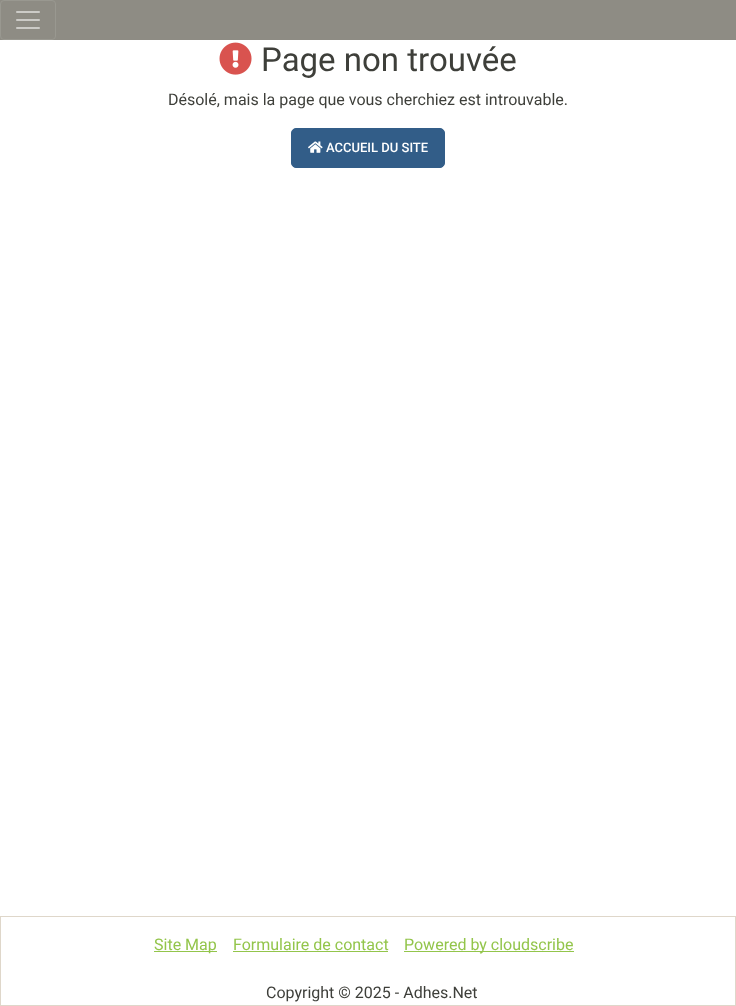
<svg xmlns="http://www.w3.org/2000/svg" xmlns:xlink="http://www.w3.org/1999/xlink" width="736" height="1006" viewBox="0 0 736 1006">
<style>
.cls-1{font:33px Roboto;fill:#3e3f3a}
.cls-2{font:16px Roboto;fill:#3e3f3a}
.cls-3{font:500 13px Roboto;fill:#ffffff}
.cls-4{font:16px Roboto;fill:#93c54b}
</style>
<rect width="100%" height="100%" fill="#ffffff"/>
<rect fill="#8e8c84" x="0" y="0" width="736" height="40"/>
<rect fill="none" stroke="#999890" x="0.5" y="0.5" width="55" height="39" rx="3.5"/>
<image xlink:href="image0.png" x="16" y="11" width="24" height="18"/>
<image xlink:href="image1.png" x="219" y="42" width="33" height="33"/>
<rect fill="#325d88" stroke="#325d88" x="291.5" y="128.5" width="153" height="39" rx="4.5"/>
<image xlink:href="image2.png" x="308" y="141" width="15" height="12"/>
<rect fill="none" stroke="#dfd7ca" x="0.5" y="916.5" width="735" height="89"/>
<rect fill="#93c54b" x="154" y="951" width="63" height="1"/>
<rect fill="#93c54b" x="233" y="951" width="155" height="1"/>
<rect fill="#93c54b" x="404" y="951" width="170" height="1"/>
<text class="cls-1" x="261" y="71">Page non trouvée</text>
<text class="cls-2" x="168" y="105">Désolé, mais la page que vous cherchiez est introuvable.</text>
<text class="cls-3" x="326" y="152">ACCUEIL DU SITE</text>
<text class="cls-4" x="154" y="950">Site Map</text>
<text class="cls-4" x="233" y="950">Formulaire de contact</text>
<text class="cls-4" x="404" y="950">Powered by cloudscribe</text>
<text class="cls-2" x="266" y="998">Copyright © 2025 - Adhes.Net</text>
</svg>
